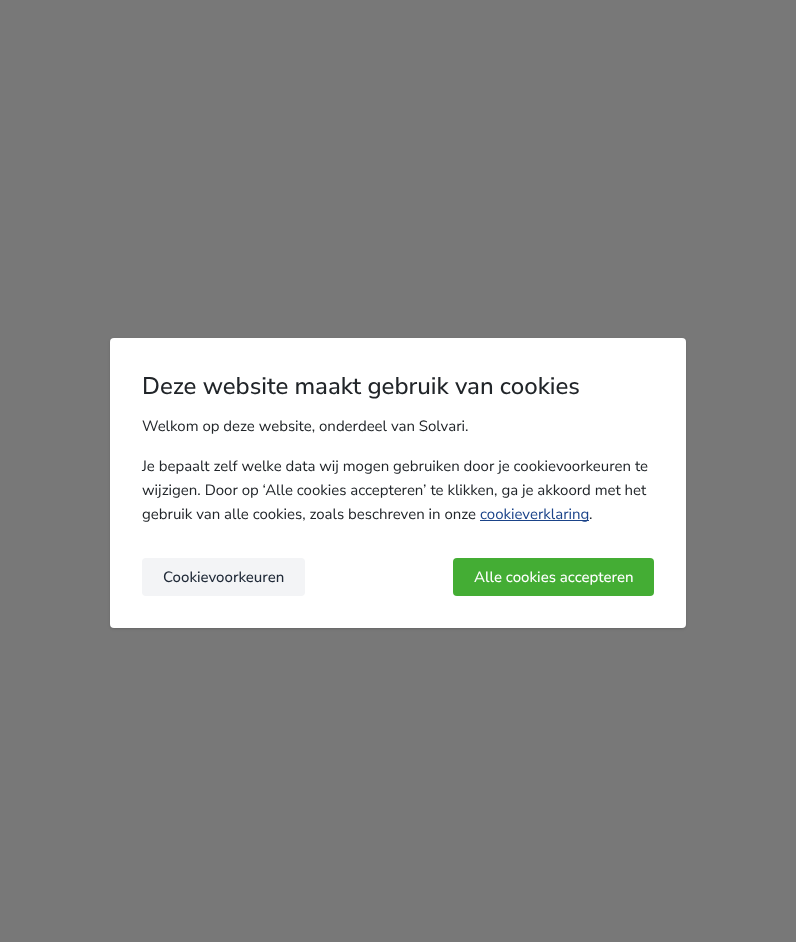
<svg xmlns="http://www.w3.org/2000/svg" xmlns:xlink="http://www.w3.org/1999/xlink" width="796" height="942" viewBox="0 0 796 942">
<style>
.cls-1{font:500 24px Nunito Sans;fill:#212529}
.cls-2{font:15px Nunito Sans;fill:#212529}
.cls-3{font:15px Nunito Sans;fill:#1a4389}
.cls-4{font:500 15px Nunito Sans;fill:#1f2937}
.cls-5{font:500 15px Nunito Sans;fill:#ffffff}
</style>
<rect width="100%" height="100%" fill="#787878"/>
<rect fill="#000000" fill-opacity="0.1" filter="blur(1px)" x="111" y="340" width="574" height="288" rx="3"/>
<rect fill="#000000" fill-opacity="0.1" filter="blur(1.5px)" x="110" y="339" width="576" height="290" rx="4"/>
<rect fill="#ffffff" x="110" y="338" width="576" height="290" rx="4"/>
<rect fill="#1a4389" x="480" y="520" width="109" height="1"/>
<rect fill="#f3f4f6" x="142" y="558" width="163" height="38" rx="4"/>
<rect fill="#44ad34" x="453" y="558" width="201" height="38" rx="4"/>
<text class="cls-1" x="142" y="394">Deze website maakt gebruik van cookies</text>
<text class="cls-2" x="142" y="431">Welkom op deze website, onderdeel van Solvari.</text>
<text class="cls-2"><tspan x="142" y="471">Je bepaalt zelf welke data wij mogen gebruiken door je cookievoorkeuren te</tspan><tspan x="142" y="495">wijzigen. Door op ‘Alle cookies accepteren’ te klikken, ga je akkoord met het</tspan><tspan x="142" y="519">gebruik van alle cookies, zoals beschreven in onze</tspan></text>
<text class="cls-3" x="480" y="519">cookieverklaring</text>
<text class="cls-2" x="589" y="519">.</text>
<text class="cls-4" x="163" y="582">Cookievoorkeuren</text>
<text class="cls-5" x="474" y="582">Alle cookies accepteren</text>
</svg>
